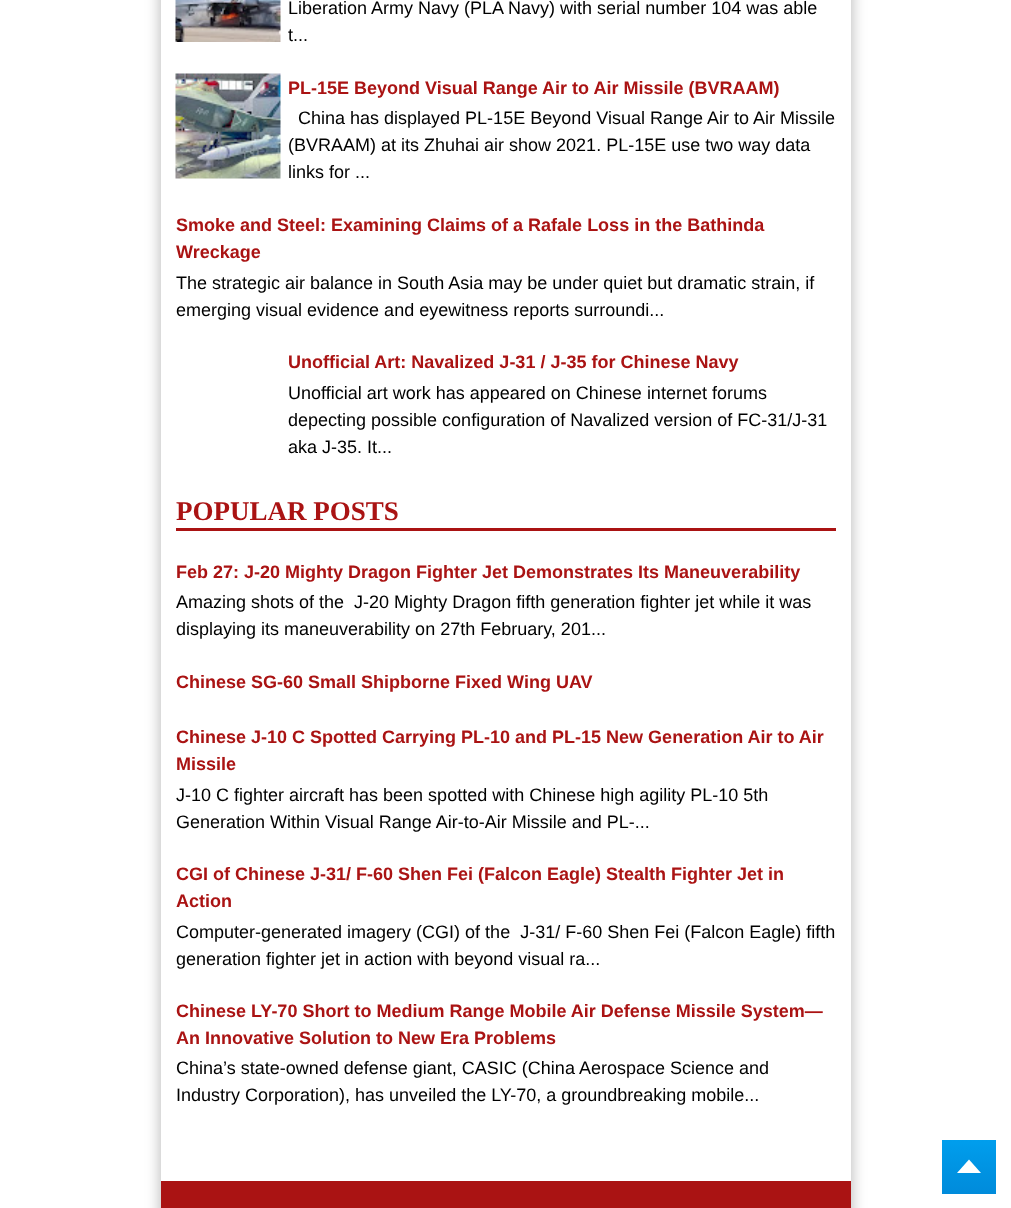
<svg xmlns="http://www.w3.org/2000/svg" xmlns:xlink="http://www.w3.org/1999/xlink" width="1011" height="1208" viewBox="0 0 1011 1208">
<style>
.cls-1{font:18px Liberation Sans;fill:#000000}
.cls-2{font:bold 18px Liberation Sans;fill:#aa1313}
.cls-3{font:bold 27px Liberation Serif;fill:#aa1313}
</style>
<defs>
<linearGradient id="g1" gradientUnits="userSpaceOnUse" x1="969" y1="1140" x2="969" y2="1194"><stop offset="0" stop-color="#009eed"/><stop offset="0.5" stop-color="#0094e3"/><stop offset="1" stop-color="#008bdb"/></linearGradient>
</defs>
<rect width="100%" height="100%" fill="#ffffff"/>
<rect fill="#000000" fill-opacity="0.3" filter="blur(7.5px)" x="161" y="-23" width="690" height="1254"/>
<rect fill="#ffffff" x="161" y="0" width="690" height="1181"/>
<image xlink:href="image0.png" x="175" y="0" width="106" height="42"/>
<image xlink:href="image1.png" x="175" y="73" width="106" height="106"/>
<rect fill="#aa1313" x="176" y="528" width="660" height="3"/>
<rect fill="#aa1313" x="161" y="1181" width="690" height="27"/>
<rect fill="url(#g1)" x="942" y="1140" width="54" height="54"/>
<path fill="#ffffff" d="M981 1173H957L969 1159.5Z"/>
<text class="cls-1"><tspan x="288" y="14">Liberation Army Navy (PLA Navy) with serial number 104 was able</tspan><tspan x="288" y="41">t...</tspan></text>
<text class="cls-2" x="288" y="94">PL-15E Beyond Visual Range Air to Air Missile (BVRAAM)</text>
<text class="cls-1" x="298" y="124">China has displayed PL-15E Beyond Visual Range Air to Air Missile</text>
<text class="cls-1"><tspan x="288" y="151">(BVRAAM) at its Zhuhai air show 2021. PL-15E use two way data</tspan><tspan x="288" y="178">links for ...</tspan></text>
<text class="cls-2"><tspan x="176" y="231">Smoke and Steel: Examining Claims of a Rafale Loss in the Bathinda</tspan><tspan x="176" y="258">Wreckage</tspan></text>
<text class="cls-1"><tspan x="176" y="289">The strategic air balance in South Asia may be under quiet but dramatic strain, if</tspan><tspan x="176" y="316">emerging visual evidence and eyewitness reports surroundi...</tspan></text>
<text class="cls-2" x="288" y="368">Unofficial Art: Navalized J-31 / J-35 for Chinese Navy</text>
<text class="cls-1"><tspan x="288" y="399">Unofficial art work has appeared on Chinese internet forums</tspan><tspan x="288" y="426">depecting possible configuration of Navalized version of FC-31/J-31</tspan><tspan x="288" y="453">aka J-35. It...</tspan></text>
<text class="cls-3" x="176" y="520">POPULAR POSTS</text>
<text class="cls-2" x="176" y="578">Feb 27: J-20 Mighty Dragon Fighter Jet Demonstrates Its Maneuverability</text>
<text class="cls-1" xml:space="preserve"><tspan x="176" y="608">Amazing shots of the  J-20 Mighty Dragon fifth generation fighter jet while it was</tspan><tspan x="176" y="635">displaying its maneuverability on 27th February, 201...</tspan></text>
<text class="cls-2" x="176" y="688">Chinese SG-60 Small Shipborne Fixed Wing UAV</text>
<text class="cls-2"><tspan x="176" y="743">Chinese J-10 C Spotted Carrying PL-10 and PL-15 New Generation Air to Air</tspan><tspan x="176" y="770">Missile</tspan></text>
<text class="cls-1"><tspan x="176" y="801">J-10 C fighter aircraft has been spotted with Chinese high agility PL-10 5th</tspan><tspan x="176" y="828">Generation Within Visual Range Air-to-Air Missile and PL-...</tspan></text>
<text class="cls-2"><tspan x="176" y="880">CGI of Chinese J-31/ F-60 Shen Fei (Falcon Eagle) Stealth Fighter Jet in</tspan><tspan x="176" y="907">Action</tspan></text>
<text class="cls-1" xml:space="preserve"><tspan x="176" y="938">Computer-generated imagery (CGI) of the  J-31/ F-60 Shen Fei (Falcon Eagle) fifth</tspan><tspan x="176" y="965">generation fighter jet in action with beyond visual ra...</tspan></text>
<text class="cls-2"><tspan x="176" y="1017">Chinese LY-70 Short to Medium Range Mobile Air Defense Missile System—</tspan><tspan x="176" y="1044">An Innovative Solution to New Era Problems</tspan></text>
<text class="cls-1"><tspan x="176" y="1074">China’s state-owned defense giant, CASIC (China Aerospace Science and</tspan><tspan x="176" y="1101">Industry Corporation), has unveiled the LY-70, a groundbreaking mobile...</tspan></text>
</svg>
